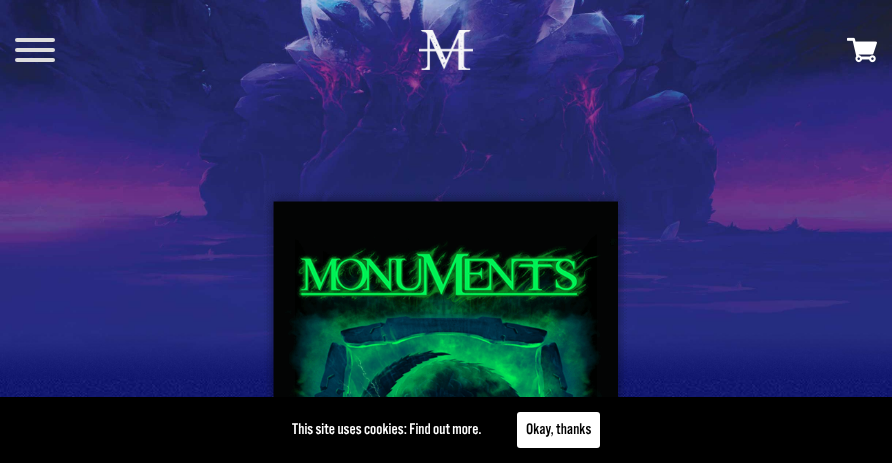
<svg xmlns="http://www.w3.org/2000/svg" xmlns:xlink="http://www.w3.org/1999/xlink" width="892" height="463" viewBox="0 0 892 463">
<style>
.cls-1{font:16px 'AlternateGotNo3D';fill:#ffffff}
.cls-2{font:16px 'AlternateGotNo3D';fill:#000000}
</style>
<rect width="100%" height="100%" fill="#ffffff"/>
<image xlink:href="image0.png" x="0" y="379" width="892" height="18"/>
<image xlink:href="image1.png" x="0" y="0" width="892" height="379"/>
<rect fill="#dddddd" x="15" y="48" width="40" height="4" rx="2"/>
<rect fill="#dddddd" x="15" y="38" width="40" height="4" rx="2"/>
<rect fill="#dddddd" x="15" y="58" width="40" height="4" rx="2"/>
<image xlink:href="image2.png" x="419" y="30" width="54" height="40"/>
<image xlink:href="image3.png" x="847" y="37" width="30" height="26"/>
<image xlink:href="image4.png" x="264" y="192" width="363" height="205"/>
<rect fill="#000000" x="0" y="397" width="892" height="66"/>
<rect fill="#ffffff" x="517" y="412" width="83" height="36" rx="3"/>
<text class="cls-1" x="292" y="434">This site uses cookies: Find out more.</text>
<text class="cls-2" x="526" y="434">Okay, thanks</text>
</svg>
